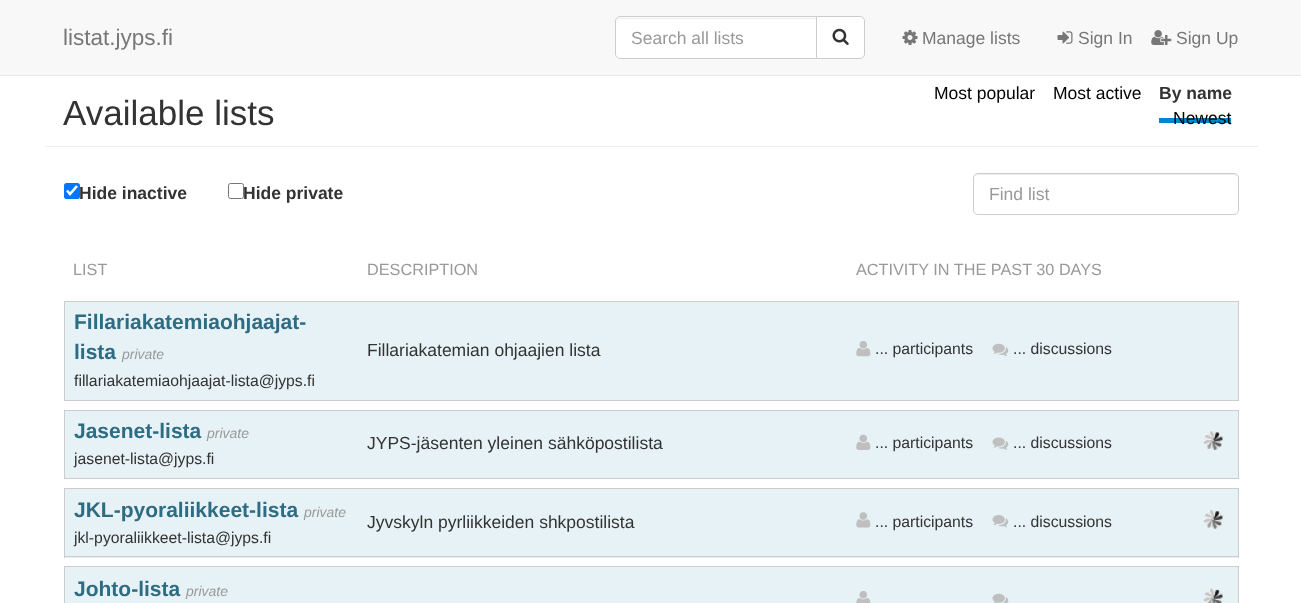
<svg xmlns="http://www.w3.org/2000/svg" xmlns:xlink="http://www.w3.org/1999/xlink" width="1301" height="603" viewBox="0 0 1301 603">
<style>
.cls-1{font:22.5px Liberation Sans;fill:#777777}
.cls-2{font:17.5px Liberation Sans;fill:#999999}
.cls-3{font:17.5px Liberation Sans;fill:#777777}
.cls-4{font:35px Liberation Sans;fill:#333333}
.cls-5{font:17.5px Liberation Sans;fill:#000000}
.cls-6{font:bold 17.5px Liberation Sans;fill:#333333}
.cls-7{font:16.25px Liberation Sans;fill:#999999}
.cls-8{font:bold 21px Liberation Sans;fill:#2e6c83}
.cls-9{font:italic 14px Liberation Sans;fill:#999999}
.cls-10{font:15.75px Liberation Sans;fill:#333333}
.cls-11{font:17.5px Liberation Sans;fill:#333333}
</style>
<rect width="100%" height="100%" fill="#ffffff"/>
<rect fill="#f8f8f8" x="0" y="0" width="1301" height="75"/>
<rect fill="#e7e7e7" x="0" y="75" width="1301" height="1"/>
<path fill="#ffffff" d="M620 16H818V59H620C617 59 615 57 615 54V21C615 18 617 16 620 16Z"/>
<path fill="#ececec" d="M620 19H816V18H620C618 18 616 20 616 22C616 20 618 19 620 19Z"/>
<path fill="none" stroke="#cccccc" d="M620 16.5H817.5V58.5H620C617.5 58.5 615.5 56.5 615.5 54V21C615.5 18.5 617.5 16.5 620 16.5Z"/>
<path fill="#ffffff" stroke="#cccccc" d="M816.5 16.5H860C862.5 16.5 864.5 18.5 864.5 21V54C864.5 56.5 862.5 58.5 860 58.5H816.5Z"/>
<image xlink:href="image0.png" x="832" y="28" width="17" height="17"/>
<image xlink:href="image1.png" x="902" y="30" width="16" height="15"/>
<image xlink:href="image2.png" x="1057" y="31" width="16" height="13"/>
<image xlink:href="image3.png" x="1151" y="30" width="21" height="15"/>
<rect fill="#eeeeee" x="45" y="146" width="1213" height="1"/>
<rect fill="#0088cc" x="1159" y="118" width="72" height="5"/>
<rect fill="#0075ff" x="64" y="183" width="16" height="16" rx="2.5"/>
<path fill="none" stroke="#ffffff" stroke-width="2.6" d="M67 190.5L70 194L77 186"/>
<rect fill="none" stroke="#767676" x="228.5" y="183.5" width="15" height="15" rx="2"/>
<path fill="#ececec" d="M978 175H1234C1236 175 1238 177 1238 179V178C1238 176 1236 174 1234 174H978C976 174 974 176 974 178V179C974 177 975 175 978 175Z"/>
<rect fill="none" stroke="#cccccc" x="973.5" y="173.5" width="265" height="41" rx="4.5"/>
<rect fill="#e6f2f5" x="65" y="302" width="1173" height="98"/>
<rect fill="#cccccc" x="64" y="301" width="1175" height="1"/>
<rect fill="#cccccc" x="64" y="400" width="1125" height="1"/>
<rect fill="#cccccc" x="64" y="301" width="1" height="100"/>
<image xlink:href="image4.png" x="856" y="341" width="15" height="16"/>
<image xlink:href="image5.png" x="992" y="343" width="17" height="13"/>
<rect fill="#cccccc" x="1238" y="301" width="1" height="100"/>
<rect fill="#cccccc" x="1189" y="400" width="50" height="1"/>
<rect fill="#e6f2f5" x="65" y="411" width="1173" height="67"/>
<rect fill="#cccccc" x="64" y="410" width="1175" height="1"/>
<rect fill="#cccccc" x="64" y="478" width="1125" height="1"/>
<rect fill="#cccccc" x="64" y="410" width="1" height="69"/>
<image xlink:href="image6.png" x="856" y="434" width="15" height="16"/>
<image xlink:href="image7.png" x="992" y="437" width="17" height="13"/>
<rect fill="#cccccc" x="1238" y="410" width="1" height="69"/>
<rect fill="#cccccc" x="1189" y="478" width="50" height="1"/>
<image xlink:href="image8.png" x="1203" y="431" width="20" height="19"/>
<rect fill="#e6f2f5" x="65" y="489" width="1173" height="69"/>
<rect fill="#cccccc" x="64" y="488" width="1175" height="1"/>
<rect fill="#cccccc" x="64" y="556" width="1125" height="1"/>
<rect fill="#cccccc" x="64" y="488" width="1" height="70"/>
<image xlink:href="image9.png" x="856" y="512" width="15" height="16"/>
<image xlink:href="image10.png" x="992" y="515" width="17" height="13"/>
<rect fill="#cccccc" x="1238" y="488" width="1" height="70"/>
<rect fill="#cccccc" x="1189" y="556" width="50" height="1"/>
<image xlink:href="image11.png" x="1203" y="510" width="20" height="19"/>
<rect fill="#e6f2f5" x="65" y="567" width="1173" height="36"/>
<rect fill="#cccccc" x="64" y="566" width="1175" height="1"/>
<rect fill="#cccccc" x="64" y="566" width="1" height="37"/>
<image xlink:href="image12.png" x="856" y="591" width="15" height="12"/>
<image xlink:href="image13.png" x="992" y="593" width="17" height="10"/>
<rect fill="#cccccc" x="1238" y="566" width="1" height="37"/>
<image xlink:href="image14.png" x="1203" y="588" width="20" height="15"/>
<text class="cls-1" x="63" y="45">listat.jyps.fi</text>
<text class="cls-2" x="631" y="44">Search all lists</text>
<text class="cls-3" x="922" y="44">Manage lists</text>
<text class="cls-3" x="1078" y="44">Sign In</text>
<text class="cls-3" x="1176" y="44">Sign Up</text>
<text class="cls-4" x="63" y="125">Available lists</text>
<text class="cls-5" x="934" y="99">Most popular</text>
<text class="cls-5" x="1053" y="99">Most active</text>
<text class="cls-6" x="1159" y="99">By name</text>
<text class="cls-5" x="1173" y="124">Newest</text>
<text class="cls-6" x="79" y="199">Hide inactive</text>
<text class="cls-6" x="243" y="199">Hide private</text>
<text class="cls-2" x="989" y="200">Find list</text>
<text class="cls-7" x="73" y="275">LIST</text>
<text class="cls-7" x="367" y="275">DESCRIPTION</text>
<text class="cls-7" x="856" y="275">ACTIVITY IN THE PAST 30 DAYS</text>
<text class="cls-8"><tspan x="74" y="329">Fillariakatemiaohjaajat-</tspan><tspan x="74" y="359">lista</tspan></text>
<text class="cls-9" x="122" y="359">private</text>
<text class="cls-10" x="74" y="386">fillariakatemiaohjaajat-lista@jyps.fi</text>
<text class="cls-11" x="367" y="356">Fillariakatemian ohjaajien lista</text>
<text class="cls-10" x="875" y="354">... participants</text>
<text class="cls-10" x="1013" y="354">... discussions</text>
<text class="cls-8" x="74" y="438">Jasenet-lista</text>
<text class="cls-9" x="207" y="438">private</text>
<text class="cls-10" x="74" y="464">jasenet-lista@jyps.fi</text>
<text class="cls-11" x="367" y="449">JYPS-jäsenten yleinen sähköpostilista</text>
<text class="cls-10" x="875" y="448">... participants</text>
<text class="cls-10" x="1013" y="448">... discussions</text>
<text class="cls-8" x="74" y="517">JKL-pyoraliikkeet-lista</text>
<text class="cls-9" x="304" y="517">private</text>
<text class="cls-10" x="74" y="543">jkl-pyoraliikkeet-lista@jyps.fi</text>
<text class="cls-11" x="367" y="528">Jyvskyln pyrliikkeiden shkpostilista</text>
<text class="cls-10" x="875" y="527">... participants</text>
<text class="cls-10" x="1013" y="527">... discussions</text>
<text class="cls-8" x="74" y="596">Johto-lista</text>
<text class="cls-9" x="186" y="596">private</text>
</svg>
